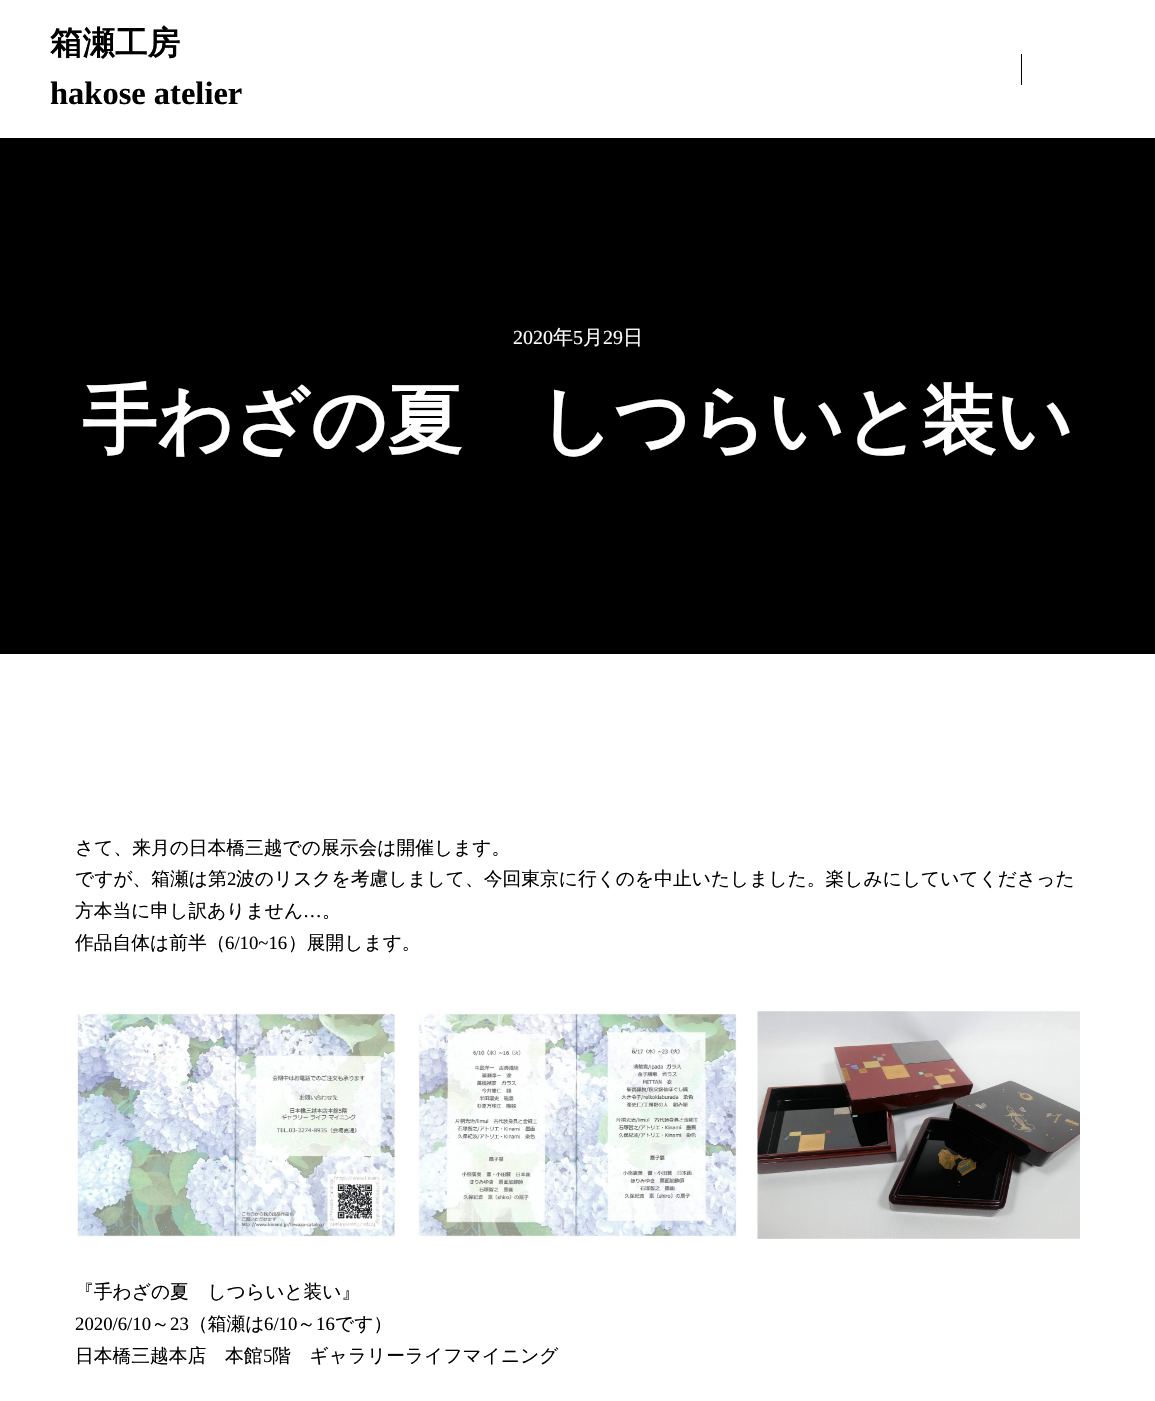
void draw(SkCanvas* canvas) {
    SkPaint paint;
    paint.setAntiAlias(true);
    auto face = [&](const char* family, int weight, float size, bool italic = false) {
        SkFontStyle style(weight, SkFontStyle::kNormal_Width,
            italic ? SkFontStyle::kItalic_Slant : SkFontStyle::kUpright_Slant);
        SkFont result(fontMgr->matchFamilyStyle(family, style), size);
        result.setSubpixel(true);
        return result;
    };
    auto write = [&](const char* s, float x, float y, const SkFont& font, SkColor color) {
        SkPaint ink(SkColor4f::FromColor(color));
        ink.setAntiAlias(true);
        canvas->drawString(s, x, y, font, ink);
    };
    auto block = [&](float x, float y, float w, float h, SkColor color) {
        SkPaint ink(SkColor4f::FromColor(color));
        ink.setAntiAlias(true);
        canvas->drawRect(SkRect::MakeXYWH(x, y, w, h), ink);
    };
    auto paste = [&](const char* path, float x, float y, float w, float h) {
        auto image = SkImages::DeferredFromEncodedData(SkData::MakeFromFileName(path));
        canvas->drawImageRect(image, SkRect::MakeXYWH(x, y, w, h), SkSamplingOptions());
    };
    canvas->clear(SK_ColorWHITE);
    auto kFont1 = face("WenQuanYi Zen Hei", 700, 32.5f);
    write("箱瀬工房", 50, 54, kFont1, SK_ColorBLACK);
    auto kFont2 = face("Liberation Serif", 700, 32.5f);
    write("hakose atelier", 50, 104, kFont2, SK_ColorBLACK);
    block(1021, 54, 1, 31, SK_ColorBLACK);
    block(0, 138, 1155, 516, SK_ColorBLACK);
    auto kFont3 = face("Liberation Serif", 400, 20);
    write("2020", 513, 344, kFont3, SK_ColorWHITE);
    auto kFont4 = face("WenQuanYi Zen Hei", 500, 20);
    write("年", 553, 344, kFont4, SK_ColorWHITE);
    write("5", 573, 344, kFont3, SK_ColorWHITE);
    write("月", 583, 344, kFont4, SK_ColorWHITE);
    write("29", 603, 344, kFont3, SK_ColorWHITE);
    write("日", 623, 344, kFont4, SK_ColorWHITE);
    auto kFont5 = face("WenQuanYi Zen Hei", 700, 75);
    write("手わざの夏　しつらいと装い", 82, 446, kFont5, SK_ColorWHITE);
    auto kFont6 = face("WenQuanYi Zen Hei", 500, 18.75f);
    write("さて、来月の日本橋三越での展示会は開催します。", 75, 854, kFont6, SK_ColorBLACK);
    write("ですが、箱瀬は第", 75, 885, kFont6, SK_ColorBLACK);
    auto kFont7 = face("Liberation Serif", 400, 18.75f);
    write("2", 227, 885, kFont7, SK_ColorBLACK);
    write("波のリスクを考慮しまして、今回東京に行くのを中止いたしました。楽しみにしていてくださった", 236, 885, kFont6, SK_ColorBLACK);
    write("方本当に申し訳ありません", 75, 917, kFont6, SK_ColorBLACK);
    write("…", 303, 917, kFont7, SK_ColorBLACK);
    write("。", 322, 917, kFont6, SK_ColorBLACK);
    write("作品自体は前半（", 75, 949, kFont6, SK_ColorBLACK);
    write("6/10~16", 225, 949, kFont7, SK_ColorBLACK);
    write("）展開します。", 288, 949, kFont6, SK_ColorBLACK);
    paste("pic1.png", 75, 1011, 323, 227);
    paste("pic2.png", 417, 1011, 321, 227);
    paste("pic3.png", 757, 1011, 323, 228);
    write("『手わざの夏　しつらいと装い』", 75, 1298, kFont6, SK_ColorBLACK);
    write("2020/6/10", 75, 1330, kFont7, SK_ColorBLACK);
    write("～", 151, 1330, kFont6, SK_ColorBLACK);
    write("23", 170, 1330, kFont7, SK_ColorBLACK);
    write("（箱瀬は", 189, 1330, kFont6, SK_ColorBLACK);
    write("6/10", 264, 1330, kFont7, SK_ColorBLACK);
    write("～", 297, 1330, kFont6, SK_ColorBLACK);
    write("16", 316, 1330, kFont7, SK_ColorBLACK);
    write("です）", 335, 1330, kFont6, SK_ColorBLACK);
    write("日本橋三越本店　本館", 75, 1362, kFont6, SK_ColorBLACK);
    write("5", 263, 1362, kFont7, SK_ColorBLACK);
    write("階　ギャラリーライフマイニング", 272, 1362, kFont6, SK_ColorBLACK);
}
